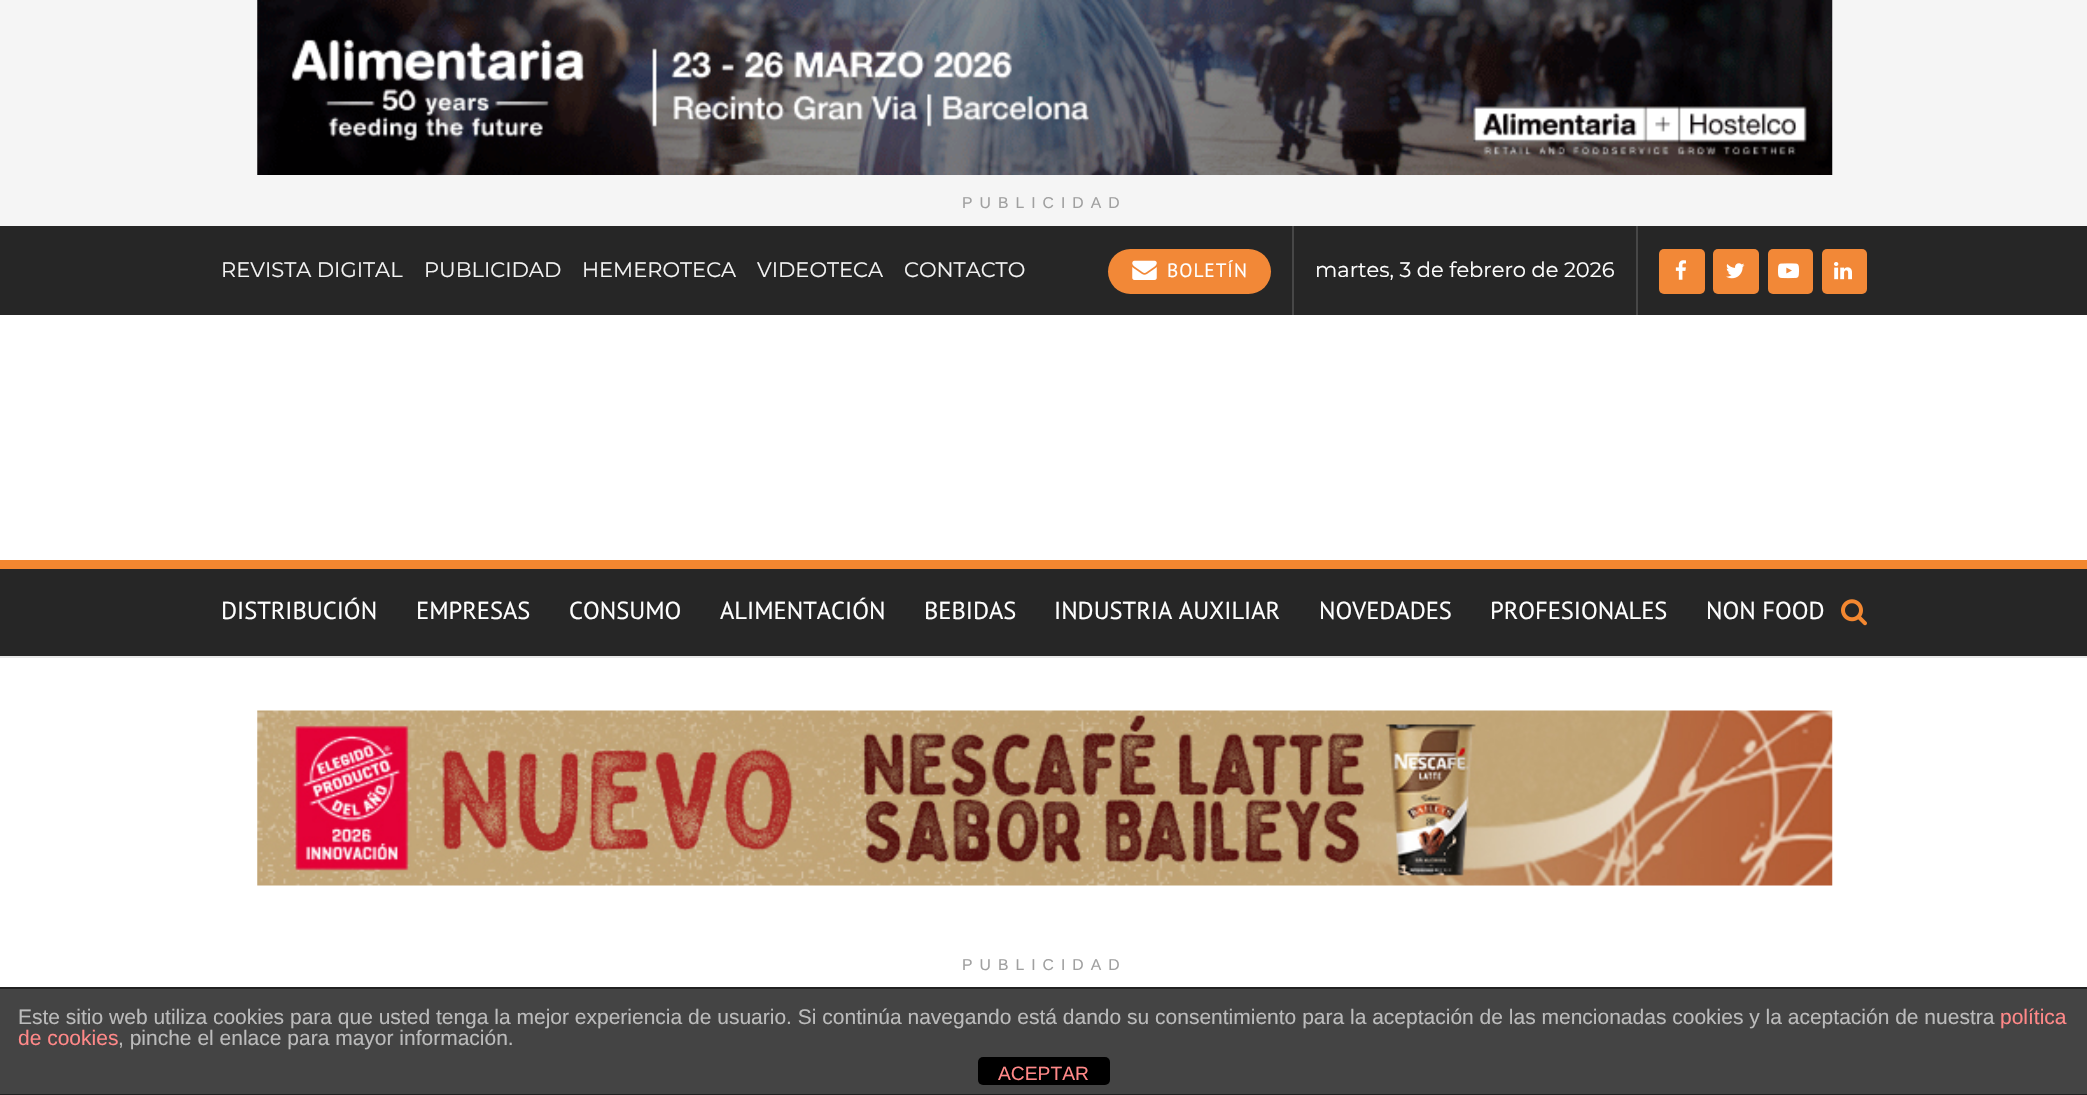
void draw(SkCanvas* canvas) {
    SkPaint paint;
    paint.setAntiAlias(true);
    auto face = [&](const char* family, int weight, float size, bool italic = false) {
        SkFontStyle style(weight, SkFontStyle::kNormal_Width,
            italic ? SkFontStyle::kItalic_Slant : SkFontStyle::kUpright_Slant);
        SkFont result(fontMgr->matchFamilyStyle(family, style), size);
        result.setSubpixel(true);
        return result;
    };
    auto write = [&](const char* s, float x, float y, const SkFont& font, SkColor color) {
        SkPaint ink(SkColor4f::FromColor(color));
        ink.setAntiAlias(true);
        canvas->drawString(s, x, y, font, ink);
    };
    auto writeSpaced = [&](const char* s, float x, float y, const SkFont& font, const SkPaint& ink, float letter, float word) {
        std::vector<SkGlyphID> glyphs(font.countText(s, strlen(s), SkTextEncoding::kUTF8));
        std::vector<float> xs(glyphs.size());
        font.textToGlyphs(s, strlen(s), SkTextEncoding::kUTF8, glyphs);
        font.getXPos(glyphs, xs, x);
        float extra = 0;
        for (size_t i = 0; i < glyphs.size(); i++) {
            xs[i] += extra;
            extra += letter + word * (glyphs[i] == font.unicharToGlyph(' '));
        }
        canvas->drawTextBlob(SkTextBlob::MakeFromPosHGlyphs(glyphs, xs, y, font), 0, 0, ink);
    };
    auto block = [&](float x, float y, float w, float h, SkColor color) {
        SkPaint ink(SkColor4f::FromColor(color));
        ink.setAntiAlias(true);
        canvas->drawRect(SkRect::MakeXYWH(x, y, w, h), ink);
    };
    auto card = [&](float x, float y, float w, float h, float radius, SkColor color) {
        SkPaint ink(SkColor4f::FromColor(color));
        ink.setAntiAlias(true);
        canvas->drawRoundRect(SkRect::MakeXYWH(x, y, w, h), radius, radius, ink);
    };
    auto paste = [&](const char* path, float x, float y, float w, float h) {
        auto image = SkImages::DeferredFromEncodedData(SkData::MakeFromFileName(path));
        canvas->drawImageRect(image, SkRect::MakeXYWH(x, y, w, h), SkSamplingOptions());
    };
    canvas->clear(SK_ColorWHITE);
    block(0, 0, 2087, 226, SkColorSetRGB(245, 245, 245));
    paste("pic1.png", 257, 0, 1576, 175);
    auto kFont1 = face("Liberation Sans", 400, 15.75f);
    paint.setColor(SkColorSetRGB(160, 160, 160));
    writeSpaced("PUBLICIDAD", 962, 208, kFont1, paint, 7, 0);
    block(0, 226, 2087, 89, SkColorSetRGB(38, 38, 38));
    auto kFont2 = face("Montserrat", 400, 21);
    write("REVISTA DIGITAL", 221, 277, kFont2, SkColorSetRGB(244, 244, 244));
    write("PUBLICIDAD", 424, 277, kFont2, SkColorSetRGB(244, 244, 244));
    write("HEMEROTECA", 582, 277, kFont2, SkColorSetRGB(244, 244, 244));
    write("VIDEOTECA", 757, 277, kFont2, SkColorSetRGB(244, 244, 244));
    write("CONTACTO", 904, 277, kFont2, SkColorSetRGB(244, 244, 244));
    block(1292, 226, 2, 89, SkColorSetRGB(71, 71, 71));
    card(1108, 249, 163, 45, 22.5f, SkColorSetRGB(242, 136, 55));
    paste("pic2.png", 1132, 260, 25, 20);
    auto kFont3 = face("PT Sans", 400, 19.25f);
    paint.setColor(SK_ColorWHITE);
    writeSpaced("BOLETÍN", 1167, 277, kFont3, paint, 1, 0);
    block(1636, 226, 2, 89, SkColorSetRGB(71, 71, 71));
    write("martes, 3 de febrero de 2026", 1315, 277, kFont2, SK_ColorWHITE);
    card(1659, 249, 46, 45, 5, SkColorSetRGB(242, 136, 55));
    paste("pic3.png", 1675, 260, 11, 20);
    card(1713, 249, 46, 45, 5, SkColorSetRGB(242, 136, 55));
    paste("pic4.png", 1726, 263, 19, 16);
    card(1768, 249, 45, 45, 5, SkColorSetRGB(242, 136, 55));
    paste("pic5.png", 1778, 263, 21, 16);
    card(1822, 249, 45, 45, 5, SkColorSetRGB(242, 136, 55));
    paste("pic6.png", 1834, 262, 18, 18);
    block(0, 569, 2087, 87, SkColorSetRGB(38, 38, 38));
    block(0, 560, 2087, 9, SkColorSetRGB(243, 135, 48));
    block(0, 656, 2087, 2, SkColorSetRGB(232, 232, 232));
    auto kFont4 = face("PT Sans", 400, 24.5f);
    write("DISTRIBUCIÓN", 221, 619, kFont4, SK_ColorWHITE);
    write("EMPRESAS", 416, 619, kFont4, SK_ColorWHITE);
    write("CONSUMO", 569, 619, kFont4, SK_ColorWHITE);
    write("ALIMENTACIÓN", 720, 619, kFont4, SK_ColorWHITE);
    write("BEBIDAS", 924, 619, kFont4, SK_ColorWHITE);
    write("INDUSTRIA AUXILIAR", 1054, 619, kFont4, SK_ColorWHITE);
    write("NOVEDADES", 1319, 619, kFont4, SK_ColorWHITE);
    write("PROFESIONALES", 1490, 619, kFont4, SK_ColorWHITE);
    write("NON FOOD", 1706, 619, kFont4, SK_ColorWHITE);
    paste("pic7.png", 1841, 599, 26, 27);
    paste("pic8.png", 257, 710, 1576, 176);
    paint.setColor(SkColorSetRGB(160, 160, 160));
    writeSpaced("PUBLICIDAD", 962, 970, kFont1, paint, 7, 0);
    block(0, 989, 2087, 105, SkColorSetRGB(68, 68, 68));
    block(0, 987, 2087, 2, SkColorSetRGB(34, 34, 34));
    block(0, 1094, 2087, 1, SkColorSetRGB(34, 34, 34));
    auto kFont5 = face("Liberation Sans", 400, 21);
    write("Este sitio web utiliza cookies para que usted tenga la mejor experiencia de usuario. Si continúa navegando está dando su consentimiento para la aceptación de las mencionadas cookies y la aceptación de nuestra", 18, 1024, kFont5, SkColorSetRGB(187, 187, 187));
    write("política", 2000, 1024, kFont5, SkColorSetRGB(255, 136, 136));
    write("de cookies", 18, 1045, kFont5, SkColorSetRGB(255, 136, 136));
    write(", pinche el enlace para mayor información.", 118, 1045, kFont5, SkColorSetRGB(187, 187, 187));
    card(978, 1057, 132, 28, 5, SK_ColorBLACK);
    auto kFont6 = face("Liberation Sans", 400, 19.25f);
    write("ACEPTAR", 998, 1080, kFont6, SkColorSetRGB(255, 136, 136));
}
